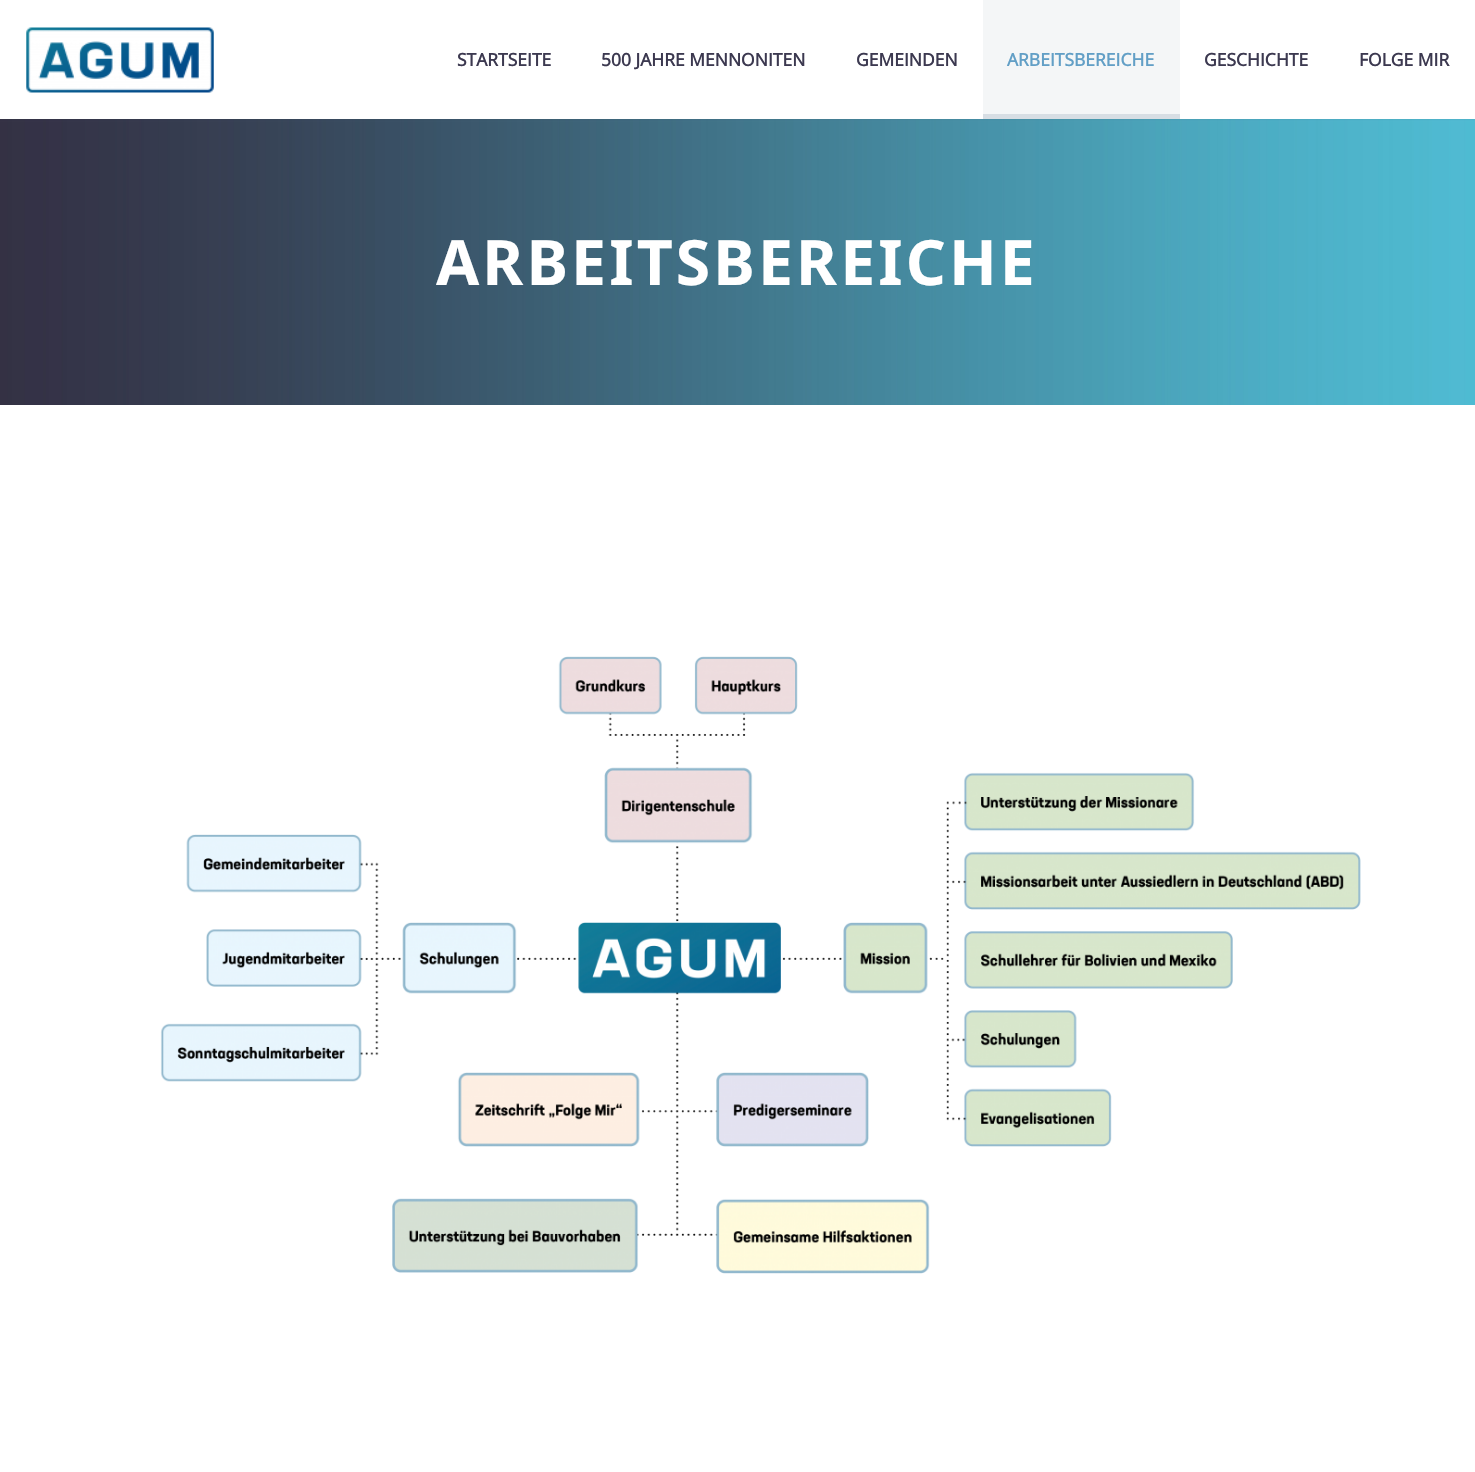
void draw(SkCanvas* canvas) {
    SkPaint paint;
    paint.setAntiAlias(true);
    auto face = [&](const char* family, int weight, float size, bool italic = false) {
        SkFontStyle style(weight, SkFontStyle::kNormal_Width,
            italic ? SkFontStyle::kItalic_Slant : SkFontStyle::kUpright_Slant);
        SkFont result(fontMgr->matchFamilyStyle(family, style), size);
        result.setSubpixel(true);
        return result;
    };
    auto write = [&](const char* s, float x, float y, const SkFont& font, SkColor color) {
        SkPaint ink(SkColor4f::FromColor(color));
        ink.setAntiAlias(true);
        canvas->drawString(s, x, y, font, ink);
    };
    auto writeSpaced = [&](const char* s, float x, float y, const SkFont& font, const SkPaint& ink, float letter, float word) {
        std::vector<SkGlyphID> glyphs(font.countText(s, strlen(s), SkTextEncoding::kUTF8));
        std::vector<float> xs(glyphs.size());
        font.textToGlyphs(s, strlen(s), SkTextEncoding::kUTF8, glyphs);
        font.getXPos(glyphs, xs, x);
        float extra = 0;
        for (size_t i = 0; i < glyphs.size(); i++) {
            xs[i] += extra;
            extra += letter + word * (glyphs[i] == font.unicharToGlyph(' '));
        }
        canvas->drawTextBlob(SkTextBlob::MakeFromPosHGlyphs(glyphs, xs, y, font), 0, 0, ink);
    };
    auto block = [&](float x, float y, float w, float h, SkColor color) {
        SkPaint ink(SkColor4f::FromColor(color));
        ink.setAntiAlias(true);
        canvas->drawRect(SkRect::MakeXYWH(x, y, w, h), ink);
    };
    auto paste = [&](const char* path, float x, float y, float w, float h) {
        auto image = SkImages::DeferredFromEncodedData(SkData::MakeFromFileName(path));
        canvas->drawImageRect(image, SkRect::MakeXYWH(x, y, w, h), SkSamplingOptions());
    };
    canvas->clear(SK_ColorWHITE);
    paste("pic2.png", 0, 119, 1475, 286);
    paint.setColor(SkColorSetARGB(51, 56, 69, 84));
    paint.setMaskFilter(SkMaskFilter::MakeBlur(kNormal_SkBlurStyle, 1));
    canvas->drawRect(SkRect::MakeXYWH(0, 0, 1475, 119), paint);
    paint.setMaskFilter(nullptr);
    block(0, 0, 1475, 119, SK_ColorWHITE);
    paste("pic1.png", 26, 27, 188, 66);
    auto kFont1 = face("Open Sans", 700, 17.5f);
    write("STARTSEITE", 457, 66, kFont1, SkColorSetRGB(60, 57, 80));
    write("500 JAHRE MENNONITEN", 601, 66, kFont1, SkColorSetRGB(60, 57, 80));
    write("GEMEINDEN", 856, 66, kFont1, SkColorSetRGB(60, 57, 80));
    block(983, 0, 197, 114, SkColorSetRGB(244, 246, 247));
    block(983, 114, 197, 5, SkColorSetRGB(215, 222, 228));
    write("ARBEITSBEREICHE", 1007, 66, kFont1, SkColorSetRGB(98, 159, 198));
    write("GESCHICHTE", 1204, 66, kFont1, SkColorSetRGB(60, 57, 80));
    write("FOLGE MIR", 1359, 66, kFont1, SkColorSetRGB(60, 57, 80));
    auto kFont2 = face("Noto Sans", 700, 62.5f);
    paint.setColor(SK_ColorWHITE);
    writeSpaced("ARBEITSBEREICHE", 436, 285, kFont2, paint, 3.1f, 0);
    paste("pic3.png", 160, 656, 1201, 618);
}
